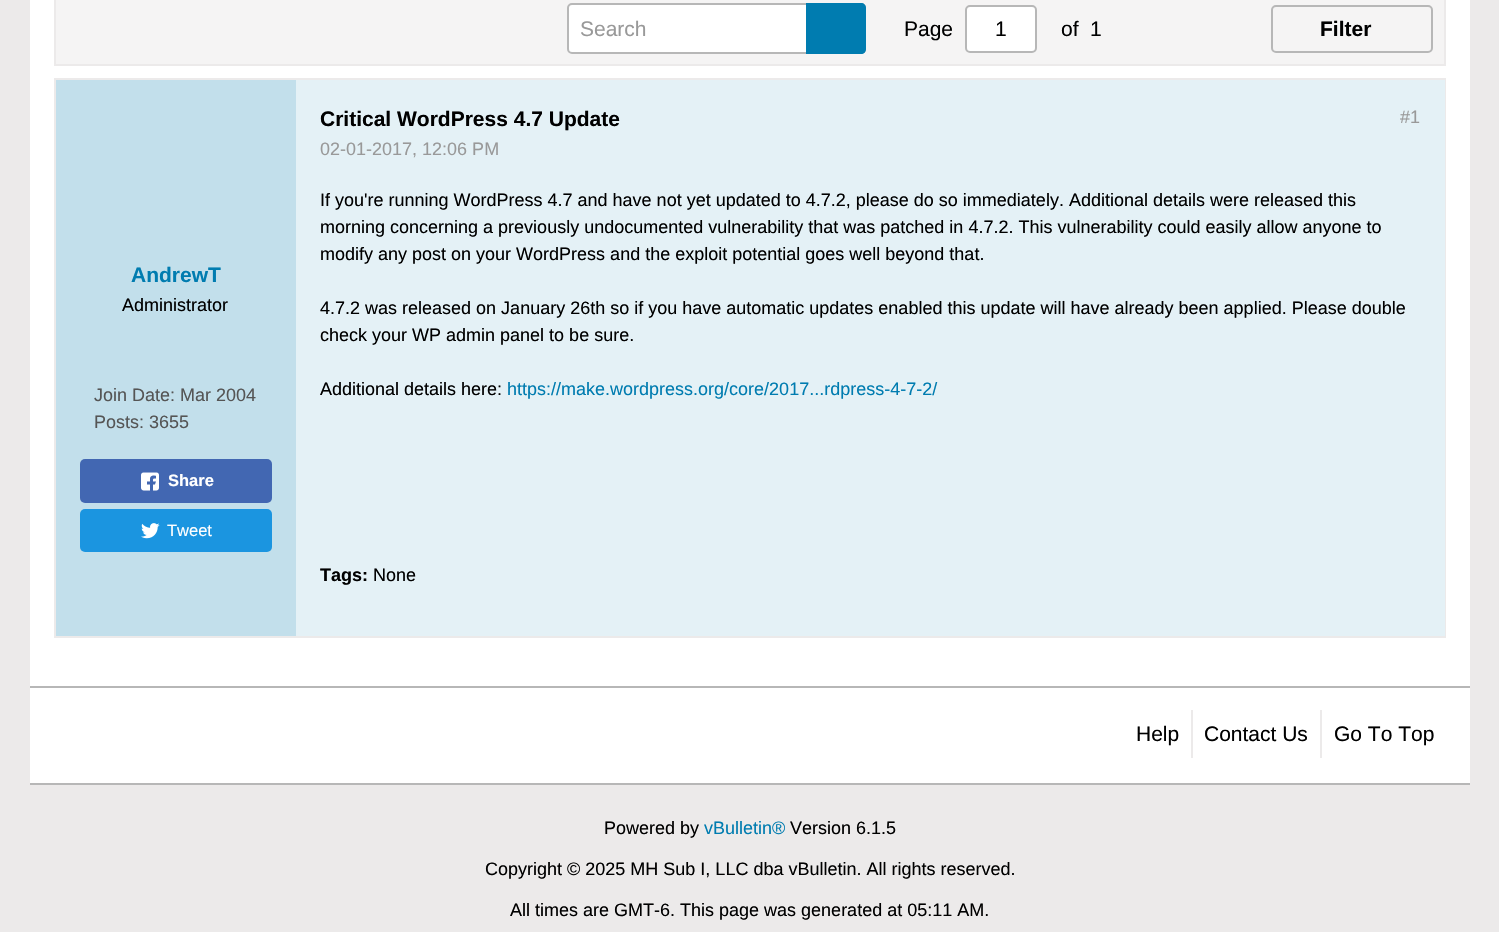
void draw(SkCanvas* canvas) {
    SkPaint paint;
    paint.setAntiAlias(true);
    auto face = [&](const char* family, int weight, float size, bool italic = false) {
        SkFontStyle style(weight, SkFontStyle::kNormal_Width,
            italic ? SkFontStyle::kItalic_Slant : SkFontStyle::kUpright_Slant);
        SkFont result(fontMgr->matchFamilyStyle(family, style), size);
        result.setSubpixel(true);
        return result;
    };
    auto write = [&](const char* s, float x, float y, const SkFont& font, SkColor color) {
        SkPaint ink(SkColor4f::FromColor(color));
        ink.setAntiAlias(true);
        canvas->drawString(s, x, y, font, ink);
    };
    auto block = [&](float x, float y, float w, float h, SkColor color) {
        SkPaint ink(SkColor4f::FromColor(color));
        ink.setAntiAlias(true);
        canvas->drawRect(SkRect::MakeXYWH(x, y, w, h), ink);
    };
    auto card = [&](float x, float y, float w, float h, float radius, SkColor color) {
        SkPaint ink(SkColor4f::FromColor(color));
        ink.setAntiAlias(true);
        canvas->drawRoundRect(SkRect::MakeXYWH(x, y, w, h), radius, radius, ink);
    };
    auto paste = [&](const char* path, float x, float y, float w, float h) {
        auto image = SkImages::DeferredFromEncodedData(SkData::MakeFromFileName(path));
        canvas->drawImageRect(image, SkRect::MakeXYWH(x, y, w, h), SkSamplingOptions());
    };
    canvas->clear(SkColorSetRGB(236, 234, 234));
    block(30, 0, 1440, 686, SK_ColorWHITE);
    paint.setColor(SkColorSetRGB(245, 244, 244));
    canvas->drawRect(SkRect::MakeXYWH(55, -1, 1390, 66), paint);
    paint.setStyle(SkPaint::kStroke_Style);
    paint.setStrokeWidth(2);
    paint.setColor(SkColorSetRGB(236, 234, 234));
    canvas->drawRect(SkRect::MakeXYWH(55, -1, 1390, 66), paint);
    paint.setStyle(SkPaint::kFill_Style);
    paint.setColor(SK_ColorWHITE);
    canvas->drawRoundRect(SkRect::MakeXYWH(568, 4, 297, 49), 4, 4, paint);
    paint.setStyle(SkPaint::kStroke_Style);
    paint.setColor(SkColorSetRGB(183, 183, 183));
    canvas->drawRoundRect(SkRect::MakeXYWH(568, 4, 297, 49), 4, 4, paint);
    auto kFont1 = face("Liberation Sans", 400, 21);
    write("Search", 580, 36, kFont1, SkColorSetRGB(153, 153, 153));
    paint.setStyle(SkPaint::kFill_Style);
    paint.setColor(SkColorSetRGB(0, 124, 176));
    canvas->drawPath(SkPathBuilder().moveTo(806, 3).lineTo(861, 3).cubicTo(864, 3, 866, 5, 866, 8).lineTo(866, 49).cubicTo(866, 52, 864, 54, 861, 54).lineTo(806, 54).close().detach(), paint);
    write("Page", 904, 36, kFont1, SK_ColorBLACK);
    paint.setColor(SK_ColorWHITE);
    canvas->drawRoundRect(SkRect::MakeXYWH(966, 6, 70, 46), 4, 4, paint);
    paint.setStyle(SkPaint::kStroke_Style);
    paint.setColor(SkColorSetRGB(183, 183, 183));
    canvas->drawRoundRect(SkRect::MakeXYWH(966, 6, 70, 46), 4, 4, paint);
    write("1", 995, 36, kFont1, SK_ColorBLACK);
    write("of", 1061, 36, kFont1, SK_ColorBLACK);
    write("1", 1090, 36, kFont1, SK_ColorBLACK);
    canvas->drawRoundRect(SkRect::MakeXYWH(1272, 6, 160, 46), 4, 4, paint);
    auto kFont2 = face("Liberation Sans", 700, 21);
    write("Filter", 1320, 36, kFont2, SK_ColorBLACK);
    block(56, 80, 240, 556, SkColorSetRGB(194, 223, 235));
    paint.setColor(SkColorSetRGB(236, 234, 234));
    canvas->drawRect(SkRect::MakeXYWH(55, 79, 1390, 558), paint);
    write("AndrewT", 131, 282, kFont2, SkColorSetRGB(0, 124, 176));
    auto kFont3 = face("Liberation Sans", 400, 18);
    write("Administrator", 122, 311, kFont3, SK_ColorBLACK);
    write("Join Date: Mar 2004", 94, 401, kFont3, SkColorSetRGB(85, 85, 85));
    write("Posts: 3655", 94, 428, kFont3, SkColorSetRGB(85, 85, 85));
    card(80, 459, 192, 44, 5, SkColorSetRGB(66, 103, 178));
    paste("pic1.png", 141, 472, 18, 19);
    auto kFont4 = face("Liberation Sans", 700, 16.5f);
    write("Share", 168, 486, kFont4, SK_ColorWHITE);
    card(80, 509, 192, 43, 5, SkColorSetRGB(27, 149, 224));
    paste("pic2.png", 141, 523, 19, 16);
    auto kFont5 = face("Liberation Sans", 400, 16.5f);
    write("Tweet", 167, 536, kFont5, SK_ColorWHITE);
    block(296, 80, 1149, 556, SkColorSetRGB(228, 241, 246));
    write("Critical WordPress 4.7 Update", 320, 126, kFont2, SK_ColorBLACK);
    write("02-01-2017, 12:06 PM", 320, 155, kFont3, SkColorSetRGB(153, 153, 153));
    write("#1", 1400, 123, kFont3, SkColorSetRGB(153, 153, 153));
    write("If you're running WordPress 4.7 and have not yet updated to 4.7.2, please do so immediately. Additional details were released this", 320, 206, kFont3, SK_ColorBLACK);
    write("morning concerning a previously undocumented vulnerability that was patched in 4.7.2. This vulnerability could easily allow anyone to", 320, 233, kFont3, SK_ColorBLACK);
    write("modify any post on your WordPress and the exploit potential goes well beyond that.", 320, 260, kFont3, SK_ColorBLACK);
    write("4.7.2 was released on January 26th so if you have automatic updates enabled this update will have already been applied. Please double", 320, 314, kFont3, SK_ColorBLACK);
    write("check your WP admin panel to be sure.", 320, 341, kFont3, SK_ColorBLACK);
    write("Additional details here:", 320, 395, kFont3, SK_ColorBLACK);
    write("https://make.wordpress.org/core/2017...rdpress-4-7-2/", 507, 395, kFont3, SkColorSetRGB(0, 124, 176));
    auto kFont6 = face("Liberation Sans", 700, 18);
    write("Tags:", 320, 581, kFont6, SK_ColorBLACK);
    write("None", 373, 581, kFont3, SK_ColorBLACK);
    block(30, 688, 1440, 95, SK_ColorWHITE);
    block(30, 686, 1440, 2, SkColorSetRGB(183, 183, 183));
    block(30, 783, 1440, 2, SkColorSetRGB(183, 183, 183));
    write("Help", 1136, 741, kFont1, SK_ColorBLACK);
    block(1191, 710, 2, 48, SkColorSetRGB(236, 234, 234));
    write("Contact Us", 1204, 741, kFont1, SK_ColorBLACK);
    block(1320, 710, 2, 48, SkColorSetRGB(236, 234, 234));
    write("Go To Top", 1334, 741, kFont1, SK_ColorBLACK);
    write("Powered by", 604, 834, kFont3, SK_ColorBLACK);
    write("vBulletin®", 704, 834, kFont3, SkColorSetRGB(0, 124, 176));
    write("Version 6.1.5", 790, 834, kFont3, SK_ColorBLACK);
    write("Copyright © 2025 MH Sub I, LLC dba vBulletin. All rights reserved.", 485, 875, kFont3, SK_ColorBLACK);
    write("All times are GMT-6. This page was generated at 05:11 AM.", 510, 916, kFont3, SK_ColorBLACK);
}
